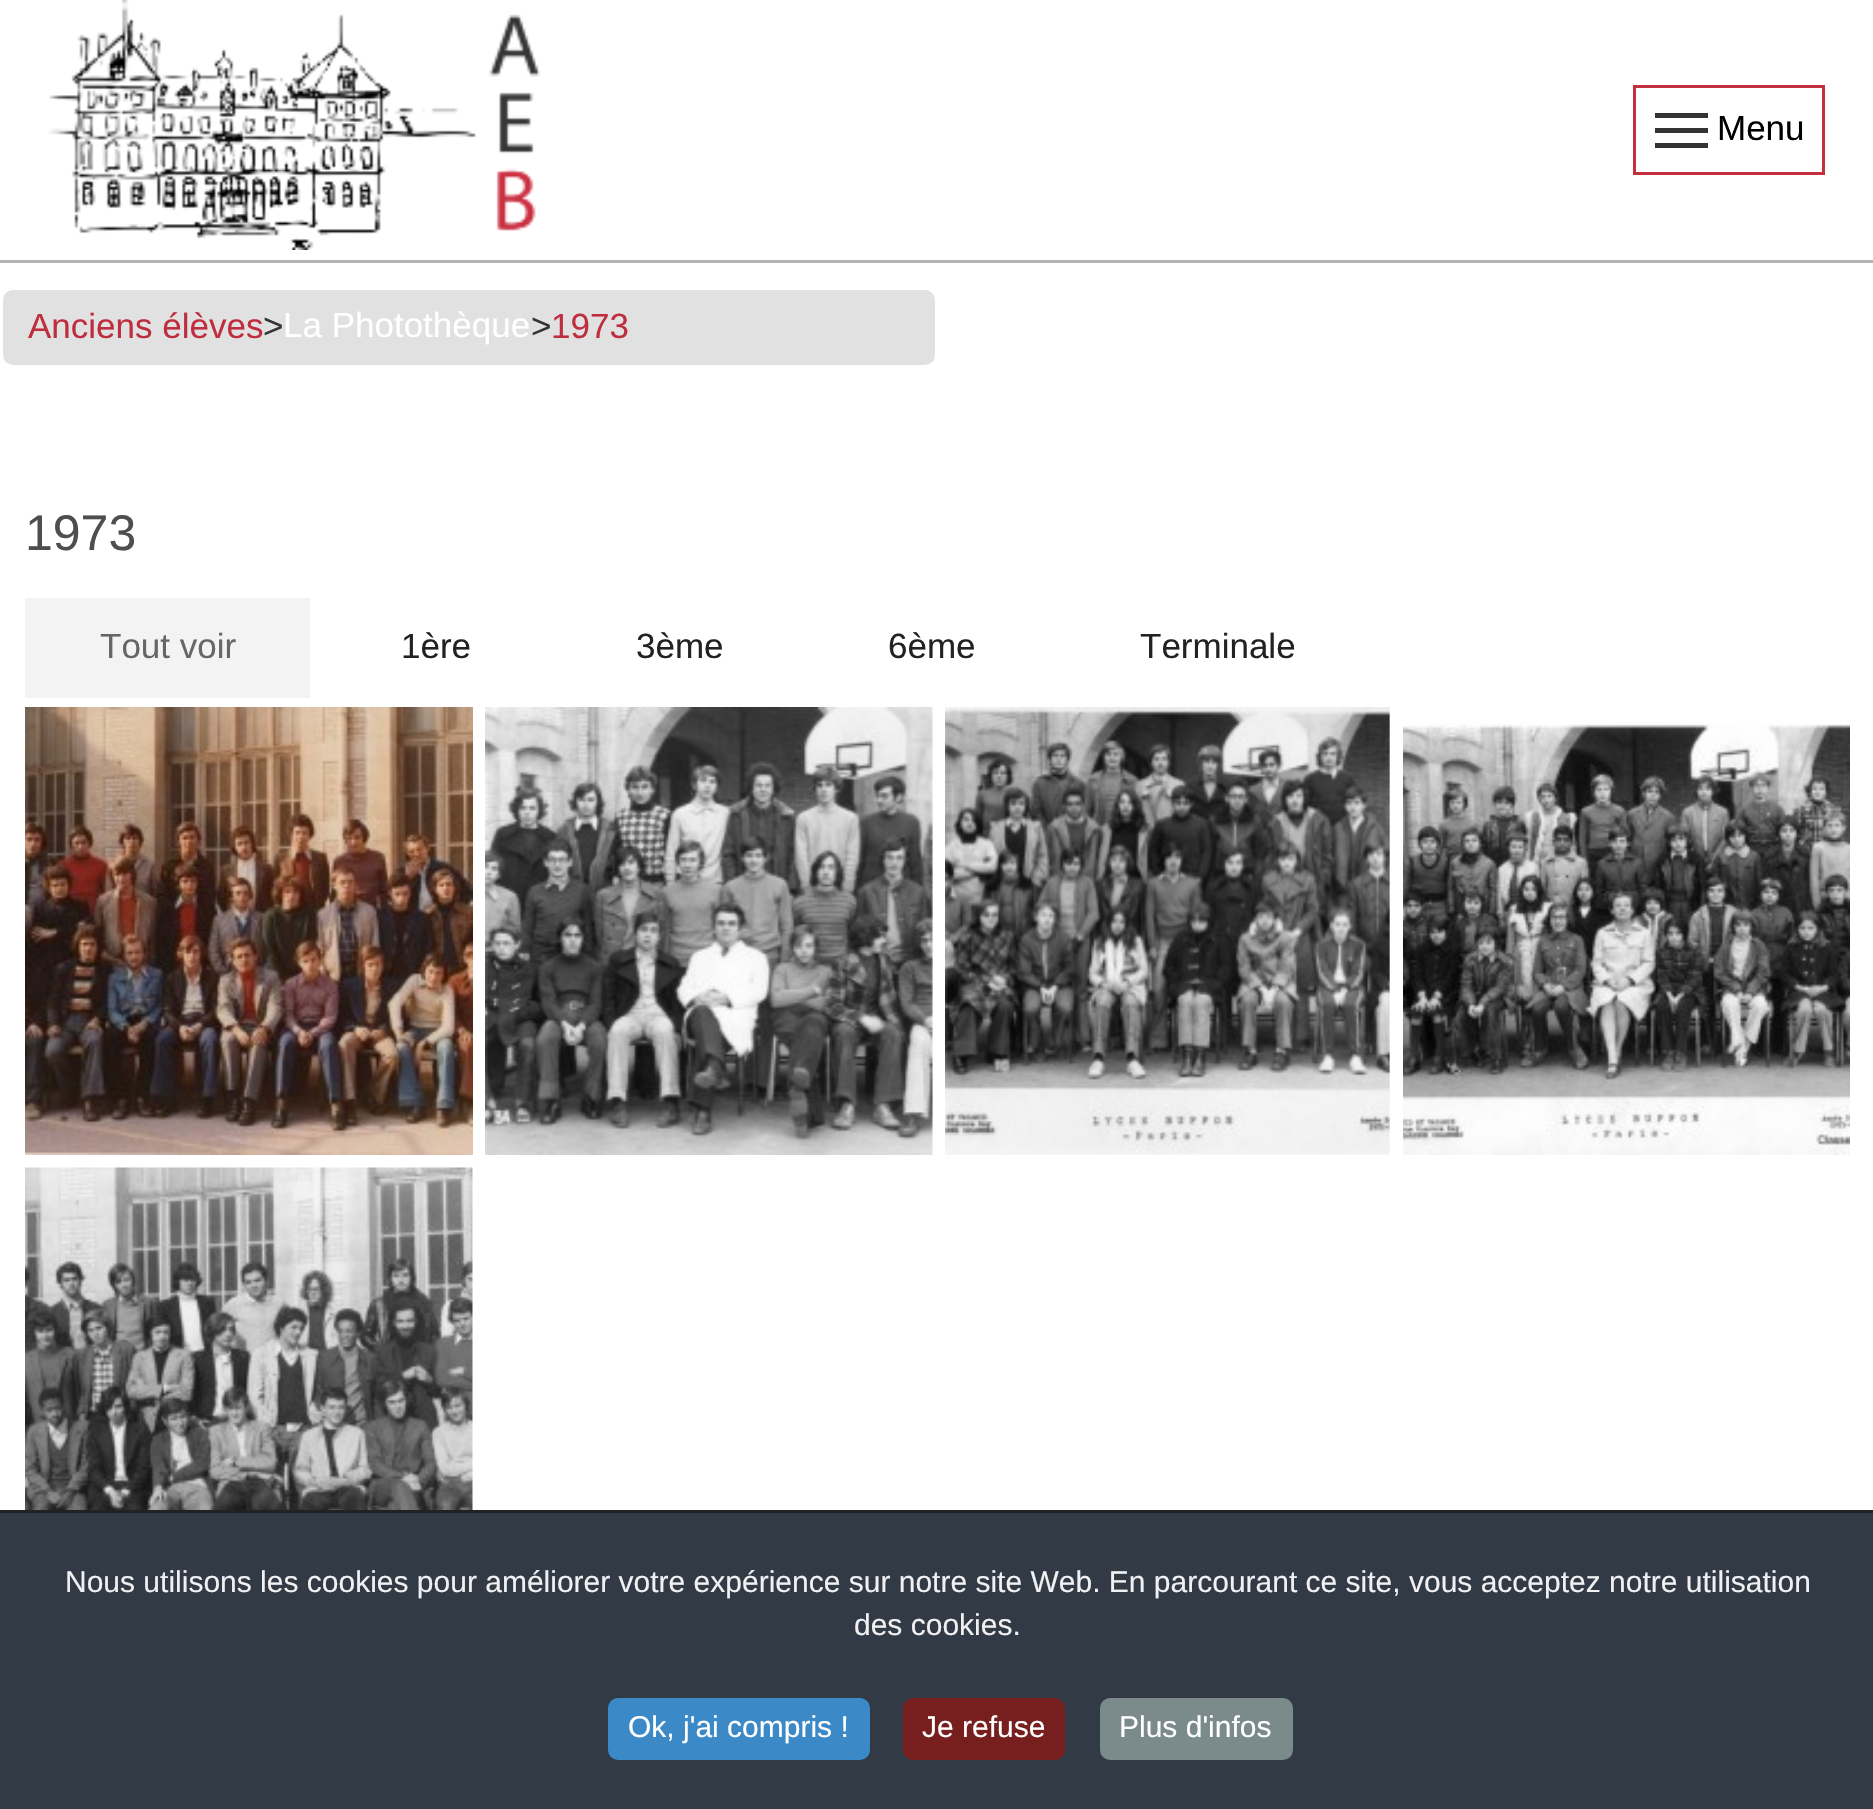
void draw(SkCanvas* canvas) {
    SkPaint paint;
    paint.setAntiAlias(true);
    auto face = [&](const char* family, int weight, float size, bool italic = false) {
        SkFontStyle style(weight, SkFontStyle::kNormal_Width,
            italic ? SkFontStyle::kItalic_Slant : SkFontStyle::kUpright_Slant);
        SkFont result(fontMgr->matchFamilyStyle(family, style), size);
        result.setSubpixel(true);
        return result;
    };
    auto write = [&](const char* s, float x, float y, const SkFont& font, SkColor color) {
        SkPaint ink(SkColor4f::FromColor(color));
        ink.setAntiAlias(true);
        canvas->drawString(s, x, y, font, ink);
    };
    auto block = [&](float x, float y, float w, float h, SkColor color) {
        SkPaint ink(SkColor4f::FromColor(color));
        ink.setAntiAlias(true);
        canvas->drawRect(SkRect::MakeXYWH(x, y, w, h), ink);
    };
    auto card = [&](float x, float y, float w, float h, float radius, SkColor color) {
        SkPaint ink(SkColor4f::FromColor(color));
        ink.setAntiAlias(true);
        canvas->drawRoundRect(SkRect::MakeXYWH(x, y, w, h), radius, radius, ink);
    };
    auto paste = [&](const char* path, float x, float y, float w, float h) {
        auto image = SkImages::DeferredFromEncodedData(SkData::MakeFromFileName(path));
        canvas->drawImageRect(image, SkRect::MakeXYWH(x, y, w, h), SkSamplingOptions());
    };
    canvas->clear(SK_ColorWHITE);
    block(0, 260, 1873, 3, SkColorSetRGB(179, 179, 179));
    paste("pic1.png", 48, 0, 492, 250);
    paint.setStyle(SkPaint::kStroke_Style);
    paint.setStrokeWidth(3);
    paint.setColor(SkColorSetRGB(197, 48, 65));
    canvas->drawRect(SkRect::MakeXYWH(1634.5f, 86.5f, 189, 87), paint);
    block(1655, 113, 53, 5, SkColorSetRGB(51, 51, 51));
    block(1655, 128, 53, 5, SkColorSetRGB(51, 51, 51));
    block(1655, 143, 53, 5, SkColorSetRGB(51, 51, 51));
    auto kFont1 = face("Liberation Sans", 400, 35);
    write("Menu", 1717, 140, kFont1, SK_ColorBLACK);
    card(3, 290, 932, 75, 10, SkColorSetRGB(225, 225, 225));
    write("Anciens élèves", 28, 338, kFont1, SkColorSetRGB(191, 46, 63));
    write(">", 263, 338, kFont1, SkColorSetRGB(52, 52, 52));
    write("La Photothèque", 283, 337, kFont1, SK_ColorWHITE);
    write(">", 531, 338, kFont1, SkColorSetRGB(52, 52, 52));
    write("1973", 551, 338, kFont1, SkColorSetRGB(191, 46, 63));
    auto kFont2 = face("Liberation Sans", 400, 50);
    write("1973", 25, 550, kFont2, SkColorSetRGB(78, 78, 78));
    block(25, 598, 285, 100, SkColorSetRGB(243, 243, 243));
    write("Tout voir", 100, 658, kFont1, SkColorSetRGB(102, 102, 102));
    write("1ère", 401, 658, kFont1, SkColorSetRGB(34, 34, 34));
    write("3ème", 636, 658, kFont1, SkColorSetRGB(34, 34, 34));
    write("6ème", 888, 658, kFont1, SkColorSetRGB(34, 34, 34));
    write("Terminale", 1140, 658, kFont1, SkColorSetRGB(34, 34, 34));
    paste("pic2.png", 25, 707, 448, 448);
    paste("pic3.png", 485, 707, 448, 448);
    paste("pic4.png", 945, 707, 445, 448);
    paste("pic5.png", 1403, 724, 447, 431);
    paste("pic6.png", 25, 1167, 448, 343);
    block(0, 1513, 1873, 296, SkColorSetRGB(50, 58, 69));
    block(0, 1510, 1873, 3, SkColorSetRGB(32, 34, 38));
    auto kFont3 = face("Liberation Sans", 400, 30);
    write("Nous utilisons les cookies pour améliorer votre expérience sur notre site Web. En parcourant ce site, vous acceptez notre utilisation", 65, 1592, kFont3, SkColorSetRGB(241, 241, 243));
    write("des cookies.", 854, 1635, kFont3, SkColorSetRGB(241, 241, 243));
    card(608, 1698, 262, 62, 10, SkColorSetRGB(59, 137, 199));
    write("Ok, j'ai compris !", 628, 1737, kFont3, SK_ColorWHITE);
    card(903, 1698, 162, 62, 10, SkColorSetRGB(119, 31, 31));
    write("Je refuse", 922, 1737, kFont3, SK_ColorWHITE);
    card(1100, 1698, 193, 62, 10, SkColorSetRGB(123, 138, 139));
    write("Plus d'infos", 1119, 1737, kFont3, SK_ColorWHITE);
}
